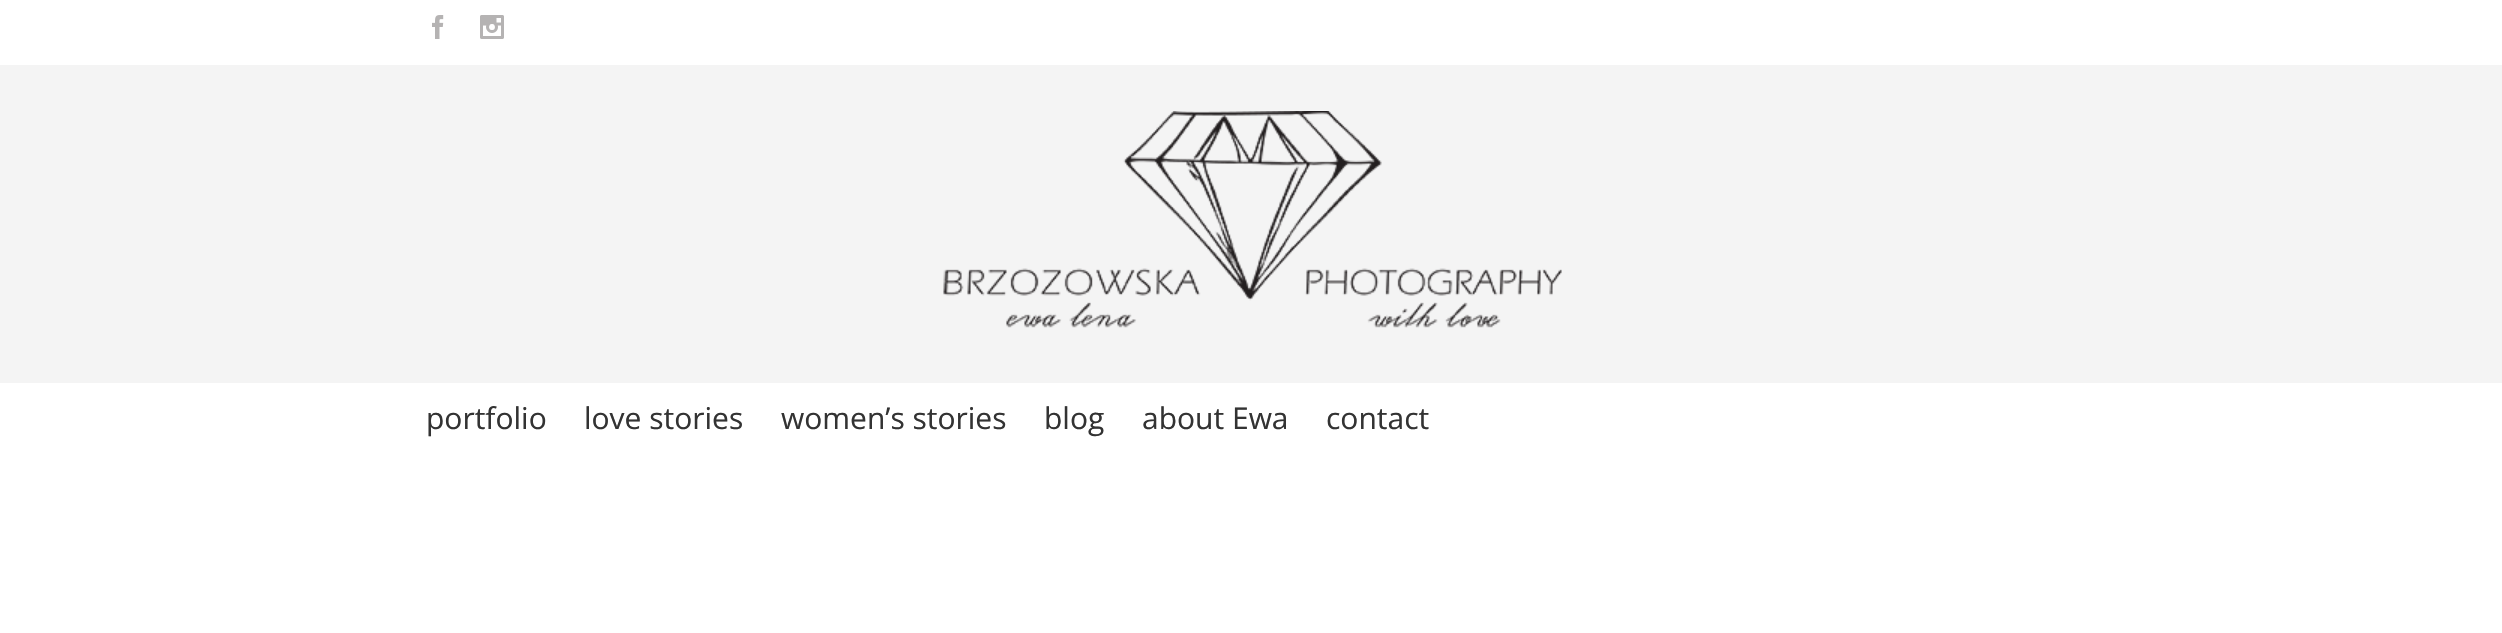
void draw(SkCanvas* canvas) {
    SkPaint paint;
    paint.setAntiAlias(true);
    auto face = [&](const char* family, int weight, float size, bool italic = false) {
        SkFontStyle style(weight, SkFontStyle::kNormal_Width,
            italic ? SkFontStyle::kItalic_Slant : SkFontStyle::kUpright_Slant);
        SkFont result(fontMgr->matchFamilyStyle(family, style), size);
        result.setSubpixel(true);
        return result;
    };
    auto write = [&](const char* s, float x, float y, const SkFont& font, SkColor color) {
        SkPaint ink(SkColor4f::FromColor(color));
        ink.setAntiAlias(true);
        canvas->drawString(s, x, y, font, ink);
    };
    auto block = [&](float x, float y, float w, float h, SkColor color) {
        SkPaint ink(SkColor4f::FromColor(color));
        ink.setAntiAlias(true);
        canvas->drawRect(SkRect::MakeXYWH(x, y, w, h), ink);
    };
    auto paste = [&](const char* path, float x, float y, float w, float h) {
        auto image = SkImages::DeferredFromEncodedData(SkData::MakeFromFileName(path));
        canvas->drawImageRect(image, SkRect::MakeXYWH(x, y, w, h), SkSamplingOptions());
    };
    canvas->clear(SK_ColorWHITE);
    paste("pic1.png", 432, 15, 12, 24);
    paste("pic2.png", 480, 15, 24, 24);
    block(0, 65, 2502, 318, SkColorSetRGB(244, 244, 244));
    paste("pic3.png", 943, 111, 619, 217);
    auto kFont1 = face("Open Sans", 400, 30);
    write("portfolio", 426, 429, kFont1, SkColorSetRGB(51, 51, 51));
    write("love stories", 584, 429, kFont1, SkColorSetRGB(51, 51, 51));
    write("women’s stories", 781, 429, kFont1, SkColorSetRGB(51, 51, 51));
    write("blog", 1044, 429, kFont1, SkColorSetRGB(51, 51, 51));
    write("about Ewa", 1142, 429, kFont1, SkColorSetRGB(51, 51, 51));
    write("contact", 1326, 429, kFont1, SkColorSetRGB(51, 51, 51));
}
